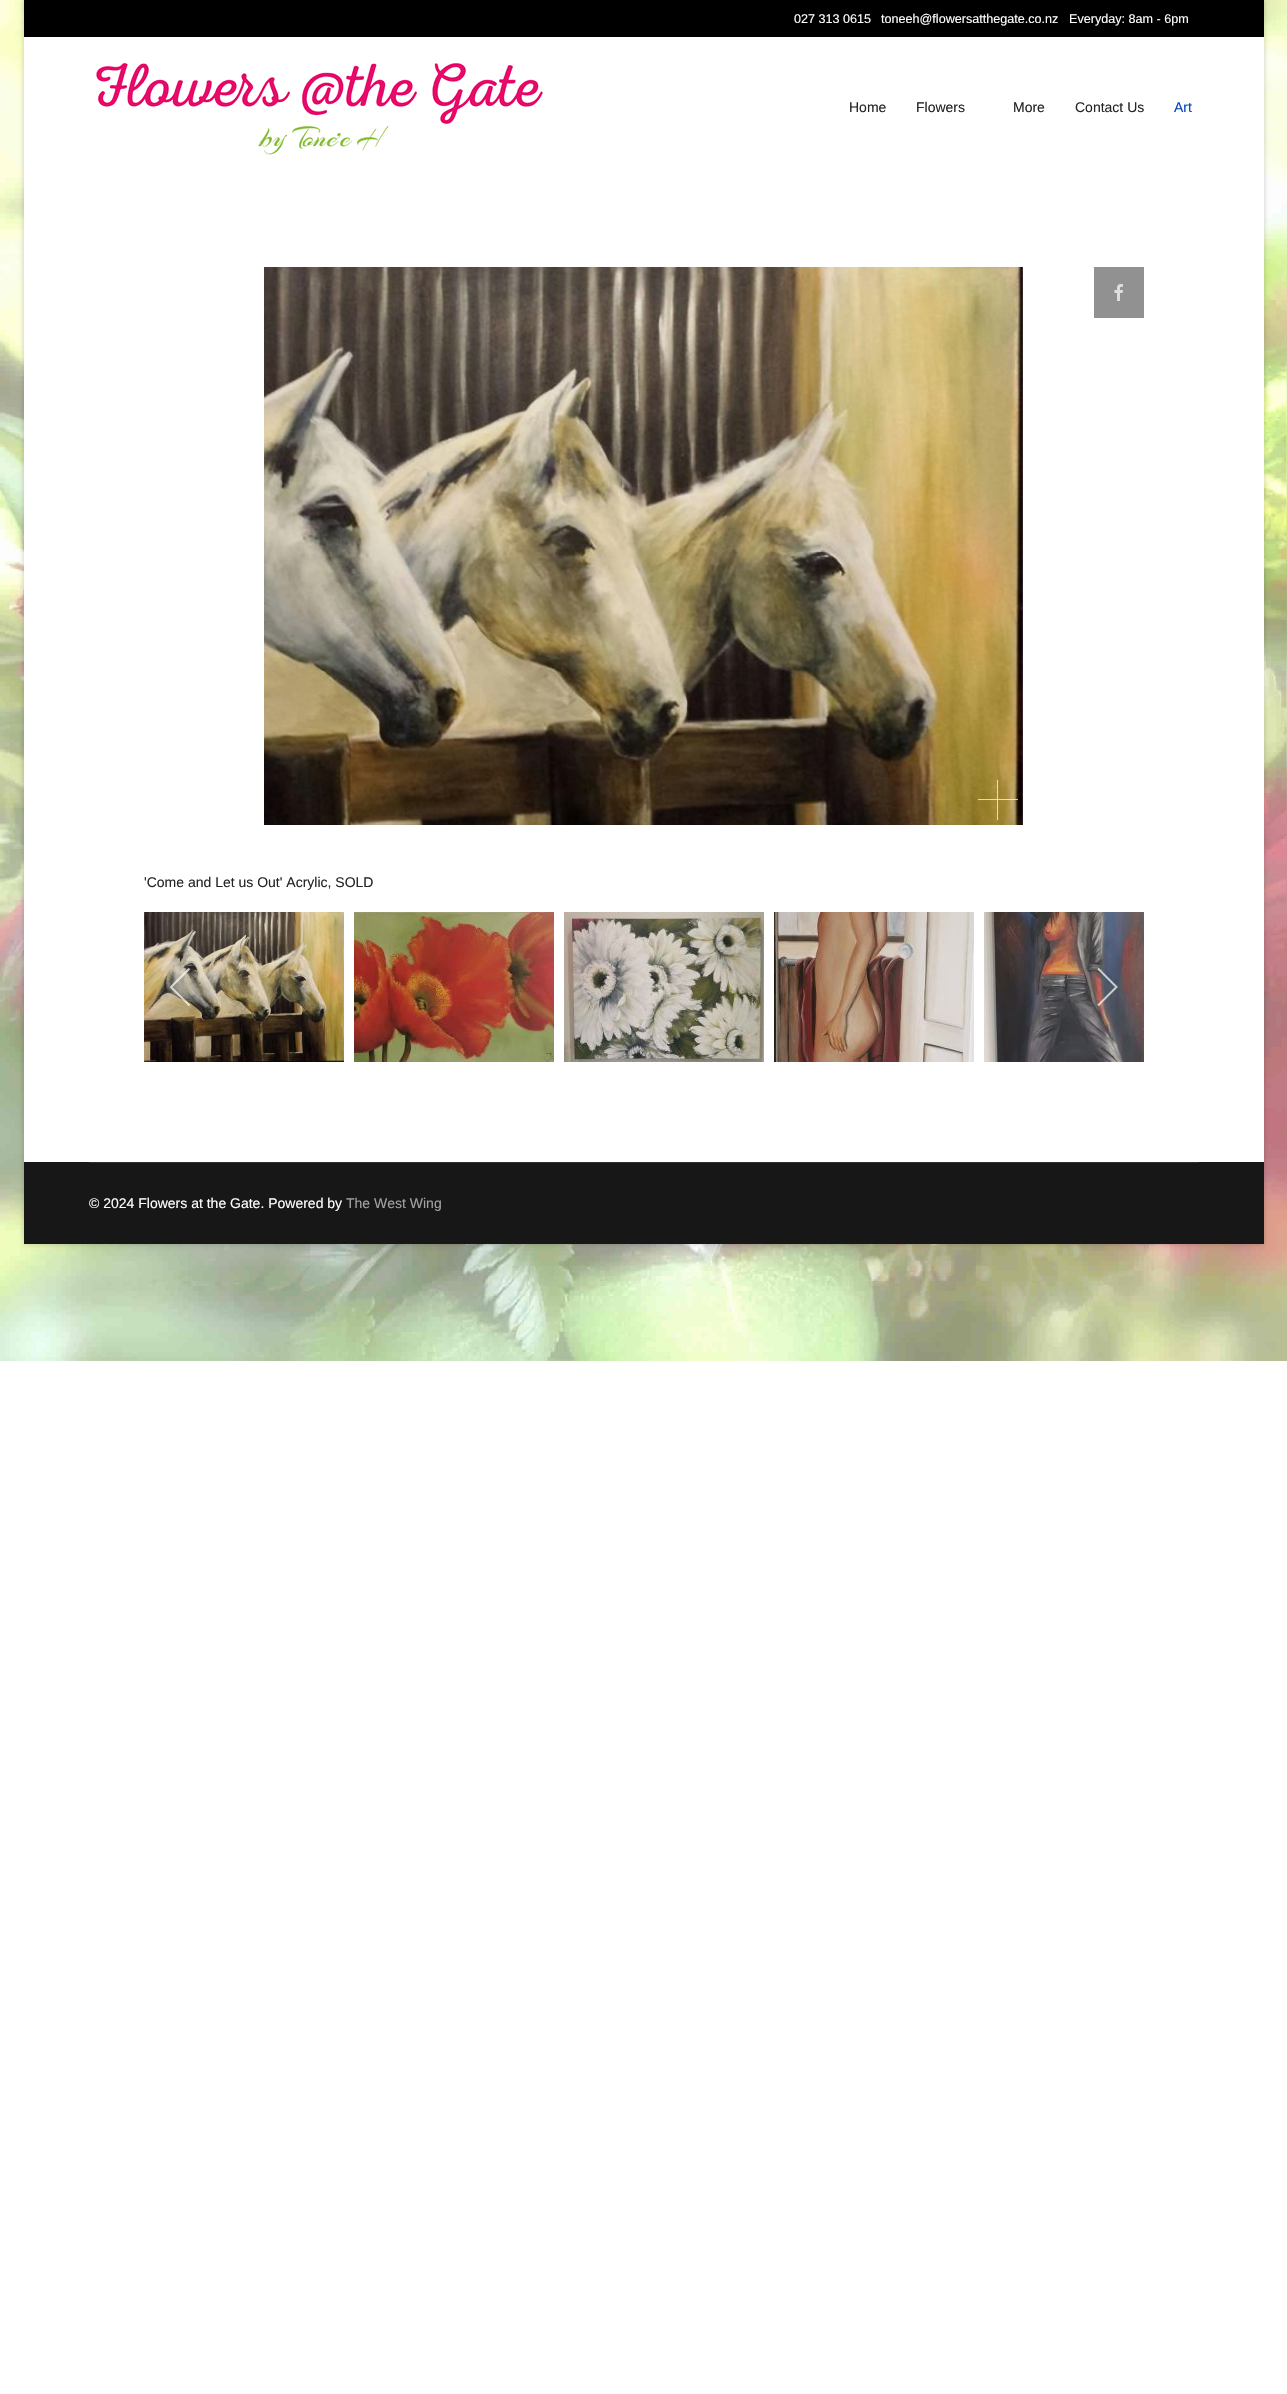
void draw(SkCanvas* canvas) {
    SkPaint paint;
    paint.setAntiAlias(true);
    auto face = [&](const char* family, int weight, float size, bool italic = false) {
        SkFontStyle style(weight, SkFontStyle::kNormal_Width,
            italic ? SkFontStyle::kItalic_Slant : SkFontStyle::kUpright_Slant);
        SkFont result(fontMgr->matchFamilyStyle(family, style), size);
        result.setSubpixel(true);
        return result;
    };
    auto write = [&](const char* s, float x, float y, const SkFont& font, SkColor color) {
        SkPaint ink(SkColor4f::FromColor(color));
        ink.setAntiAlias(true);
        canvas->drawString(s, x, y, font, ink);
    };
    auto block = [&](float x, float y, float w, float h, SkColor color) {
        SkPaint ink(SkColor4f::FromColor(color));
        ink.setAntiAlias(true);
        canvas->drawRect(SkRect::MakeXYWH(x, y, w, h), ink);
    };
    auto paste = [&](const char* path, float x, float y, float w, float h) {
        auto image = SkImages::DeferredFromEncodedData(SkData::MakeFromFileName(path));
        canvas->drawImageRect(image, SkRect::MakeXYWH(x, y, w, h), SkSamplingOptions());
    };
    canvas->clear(SK_ColorWHITE);
    paste("pic1.png", 0, 0, 1287, 1361);
    paint.setColor(SkColorSetARGB(51, 0, 0, 0));
    paint.setMaskFilter(SkMaskFilter::MakeBlur(kNormal_SkBlurStyle, 2.5f));
    canvas->drawRect(SkRect::MakeXYWH(24, 0, 1240, 1244), paint);
    paint.setMaskFilter(nullptr);
    block(24, 37, 1240, 1125, SK_ColorWHITE);
    block(24, 0, 1240, 37, SK_ColorBLACK);
    auto kFont1 = face("Liberation Sans", 400, 12.6f);
    write("027 313 0615", 794, 23, kFont1, SK_ColorWHITE);
    write("toneeh@flowersatthegate.co.nz", 881, 23, kFont1, SK_ColorWHITE);
    write("Everyday: 8am - 6pm", 1069, 23, kFont1, SK_ColorWHITE);
    paste("pic2.png", 96, 63, 447, 92);
    auto kFont2 = face("Liberation Sans", 400, 14);
    write("Home", 849, 112, kFont2, SkColorSetRGB(37, 37, 37));
    write("Flowers", 916, 112, kFont2, SkColorSetRGB(37, 37, 37));
    write("More", 1013, 112, kFont2, SkColorSetRGB(37, 37, 37));
    write("Contact Us", 1075, 112, kFont2, SkColorSetRGB(37, 37, 37));
    write("Art", 1174, 112, kFont2, SkColorSetRGB(3, 69, 191));
    paste("pic3.png", 264, 267, 759, 558);
    block(997, 780, 1, 40, SkColorSetARGB(179, 255, 255, 255));
    block(978, 799, 40, 1, SkColorSetARGB(179, 255, 255, 255));
    block(1094, 267, 50, 51, SkColorSetRGB(145, 145, 145));
    paste("pic4.png", 1114, 284, 9, 17);
    write("'Come and Let us Out' Acrylic, SOLD", 144, 887, kFont2, SkColorSetRGB(37, 37, 37));
    paste("pic5.png", 144, 912, 200, 150);
    paste("pic6.png", 354, 912, 200, 150);
    paste("pic7.png", 564, 912, 200, 150);
    paste("pic8.png", 774, 912, 200, 150);
    paste("pic9.png", 984, 912, 160, 150);
    paint.setStyle(SkPaint::kStroke_Style);
    paint.setStrokeWidth(2);
    paint.setColor(SkColorSetARGB(179, 255, 255, 255));
    canvas->drawPath(SkPathBuilder().moveTo(189.5f, 968.5f).lineTo(171, 987).lineTo(189.5f, 1005.5f).detach(), paint);
    canvas->drawPath(SkPathBuilder().moveTo(1098, 1005.5f).lineTo(1116.5f, 987).lineTo(1098, 968.5f).detach(), paint);
    block(24, 1162, 1240, 82, SkColorSetRGB(23, 23, 23));
    block(89, 1162, 1110, 1, SkColorSetRGB(46, 46, 46));
    write("© 2024 Flowers at the Gate. Powered by", 89, 1208, kFont2, SK_ColorWHITE);
    write("The West Wing", 346, 1208, kFont2, SkColorSetRGB(162, 162, 162));
}
